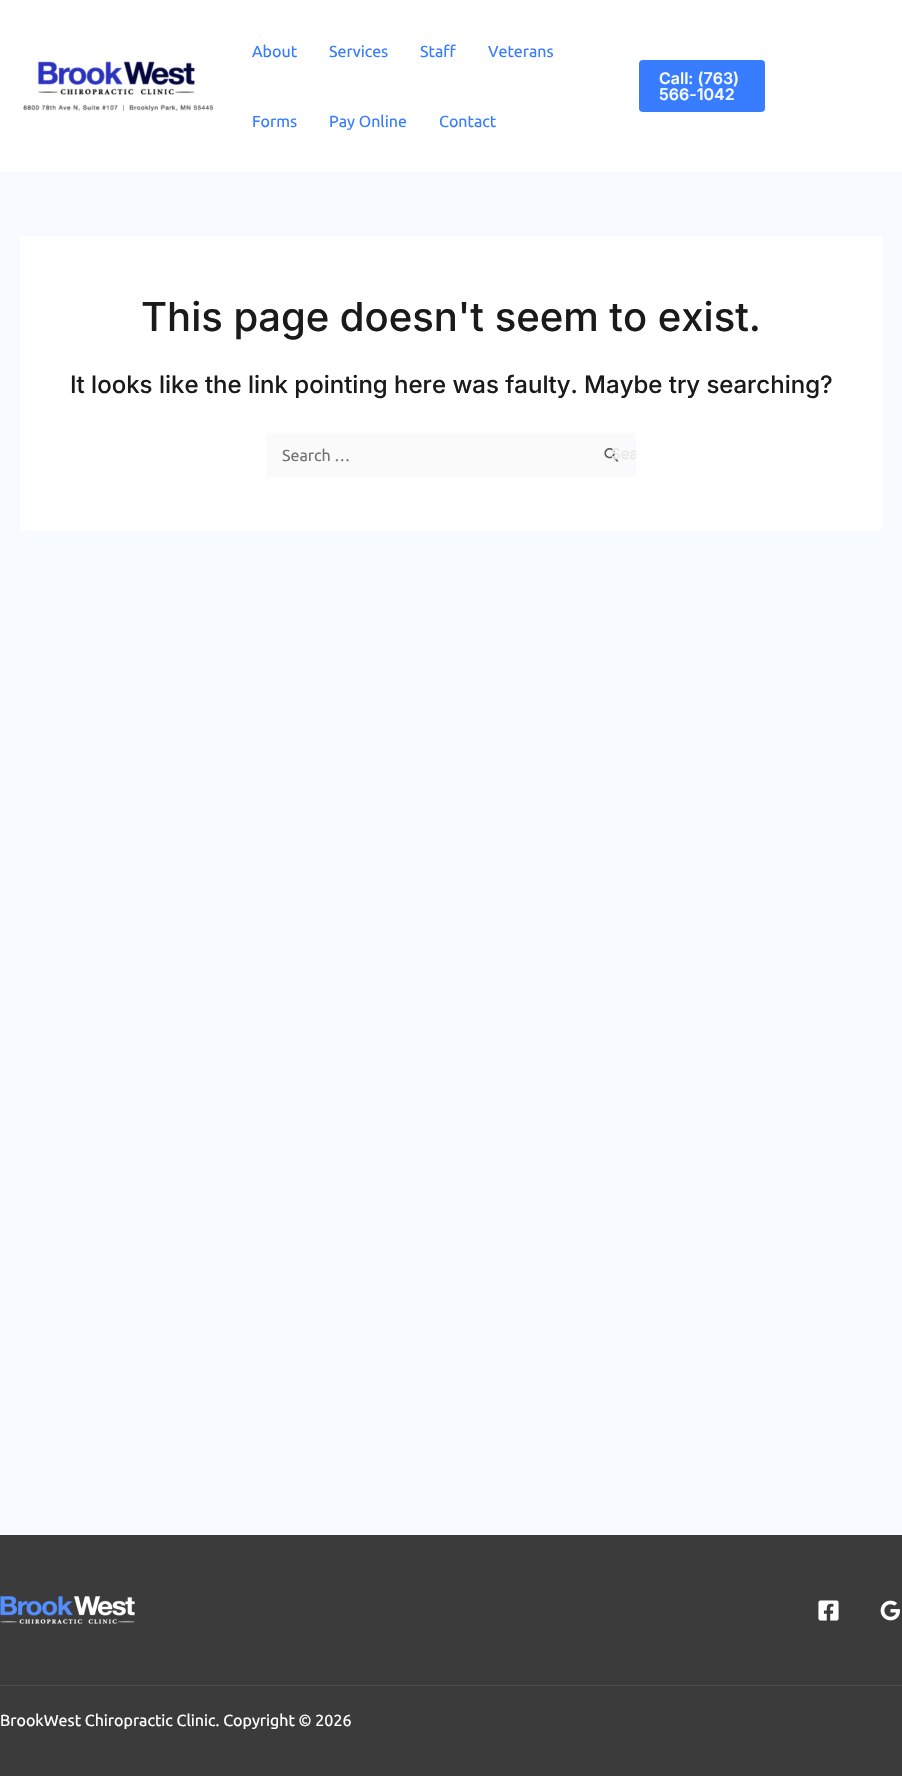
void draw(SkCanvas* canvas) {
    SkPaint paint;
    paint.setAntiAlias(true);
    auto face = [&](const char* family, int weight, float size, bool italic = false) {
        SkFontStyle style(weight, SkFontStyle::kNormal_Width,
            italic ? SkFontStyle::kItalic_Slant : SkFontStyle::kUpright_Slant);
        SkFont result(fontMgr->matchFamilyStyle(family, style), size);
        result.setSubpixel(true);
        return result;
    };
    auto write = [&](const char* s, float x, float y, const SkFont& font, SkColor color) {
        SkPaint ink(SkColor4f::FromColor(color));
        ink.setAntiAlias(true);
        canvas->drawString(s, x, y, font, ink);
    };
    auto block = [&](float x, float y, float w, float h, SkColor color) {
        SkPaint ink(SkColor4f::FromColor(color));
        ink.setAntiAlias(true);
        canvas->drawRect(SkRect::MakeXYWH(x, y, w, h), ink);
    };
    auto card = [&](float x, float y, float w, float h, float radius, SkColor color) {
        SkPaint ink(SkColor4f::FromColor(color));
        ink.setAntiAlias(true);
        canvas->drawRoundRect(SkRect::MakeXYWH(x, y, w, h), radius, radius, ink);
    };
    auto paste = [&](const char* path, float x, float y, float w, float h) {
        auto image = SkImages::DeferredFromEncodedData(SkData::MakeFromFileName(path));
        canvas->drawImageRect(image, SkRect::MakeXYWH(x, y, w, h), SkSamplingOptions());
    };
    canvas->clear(SkColorSetRGB(247, 250, 255));
    block(0, 0, 902, 172, SK_ColorWHITE);
    paste("pic1.png", 23, 61, 191, 51);
    auto kFont1 = face("Ubuntu", 400, 16);
    write("About", 252, 57, kFont1, SkColorSetRGB(56, 125, 255));
    write("Services", 329, 57, kFont1, SkColorSetRGB(56, 125, 255));
    write("Staff", 420, 57, kFont1, SkColorSetRGB(56, 125, 255));
    write("Veterans", 488, 57, kFont1, SkColorSetRGB(56, 125, 255));
    write("Forms", 252, 127, kFont1, SkColorSetRGB(56, 125, 255));
    write("Pay Online", 329, 127, kFont1, SkColorSetRGB(56, 125, 255));
    write("Contact", 439, 127, kFont1, SkColorSetRGB(56, 125, 255));
    card(639, 60, 126, 52, 4, SkColorSetRGB(56, 125, 255));
    auto kFont2 = face("Inter", 600, 16);
    write("Call: (763)", 659, 84, kFont2, SkColorSetRGB(247, 250, 255));
    write("566-1042", 659, 100, kFont2, SkColorSetRGB(247, 250, 255));
    block(20, 236, 862, 294, SK_ColorWHITE);
    auto kFont3 = face("Inter", 500, 40);
    write("This page doesn't seem to exist.", 141, 331, kFont3, SkColorSetRGB(26, 26, 26));
    auto kFont4 = face("Inter", 500, 24);
    write("It looks like the link pointing here was faulty. Maybe try searching?", 70, 393, kFont4, SkColorSetRGB(26, 26, 26));
    paint.setColor(SkColorSetRGB(250, 250, 250));
    canvas->drawRoundRect(SkRect::MakeXYWH(266.5f, 433.5f, 369, 43), 1.5f, 1.5f, paint);
    paint.setStyle(SkPaint::kStroke_Style);
    paint.setStrokeWidth(1);
    paint.setColor(SkColorSetRGB(247, 250, 255));
    canvas->drawRoundRect(SkRect::MakeXYWH(266.5f, 433.5f, 369, 43), 1.5f, 1.5f, paint);
    write("Search …", 282, 461, kFont1, SkColorSetRGB(117, 117, 117));
    paste("pic2.png", 604, 448, 15, 14);
    canvas->save();
    canvas->clipPath(SkPathBuilder().moveTo(593, 433).lineTo(634, 433).cubicTo(635, 433, 636, 434, 636, 435).lineTo(636, 472).cubicTo(636, 473, 635, 474, 634, 474).lineTo(593, 474).cubicTo(592, 474, 591, 473, 591, 472).lineTo(591, 435).cubicTo(591, 434, 592, 433, 593, 433).close().detach(), true);
    auto kFont5 = face("Inter", 500, 15);
    write("Sea", 611, 459, kFont5, SkColorSetRGB(233, 233, 233));
    canvas->restore();
    block(0, 1535, 902, 150, SkColorSetRGB(59, 59, 59));
    paste("pic3.png", 0, 1596, 135, 28);
    paste("pic4.png", 818, 1600, 21, 21);
    paste("pic5.png", 880, 1600, 20, 21);
    block(0, 1686, 902, 90, SkColorSetRGB(59, 59, 59));
    block(0, 1685, 902, 1, SkColorSetRGB(75, 75, 75));
    write("BrookWest Chiropractic Clinic. Copyright © 2026", 0, 1726, kFont1, SK_ColorWHITE);
}
